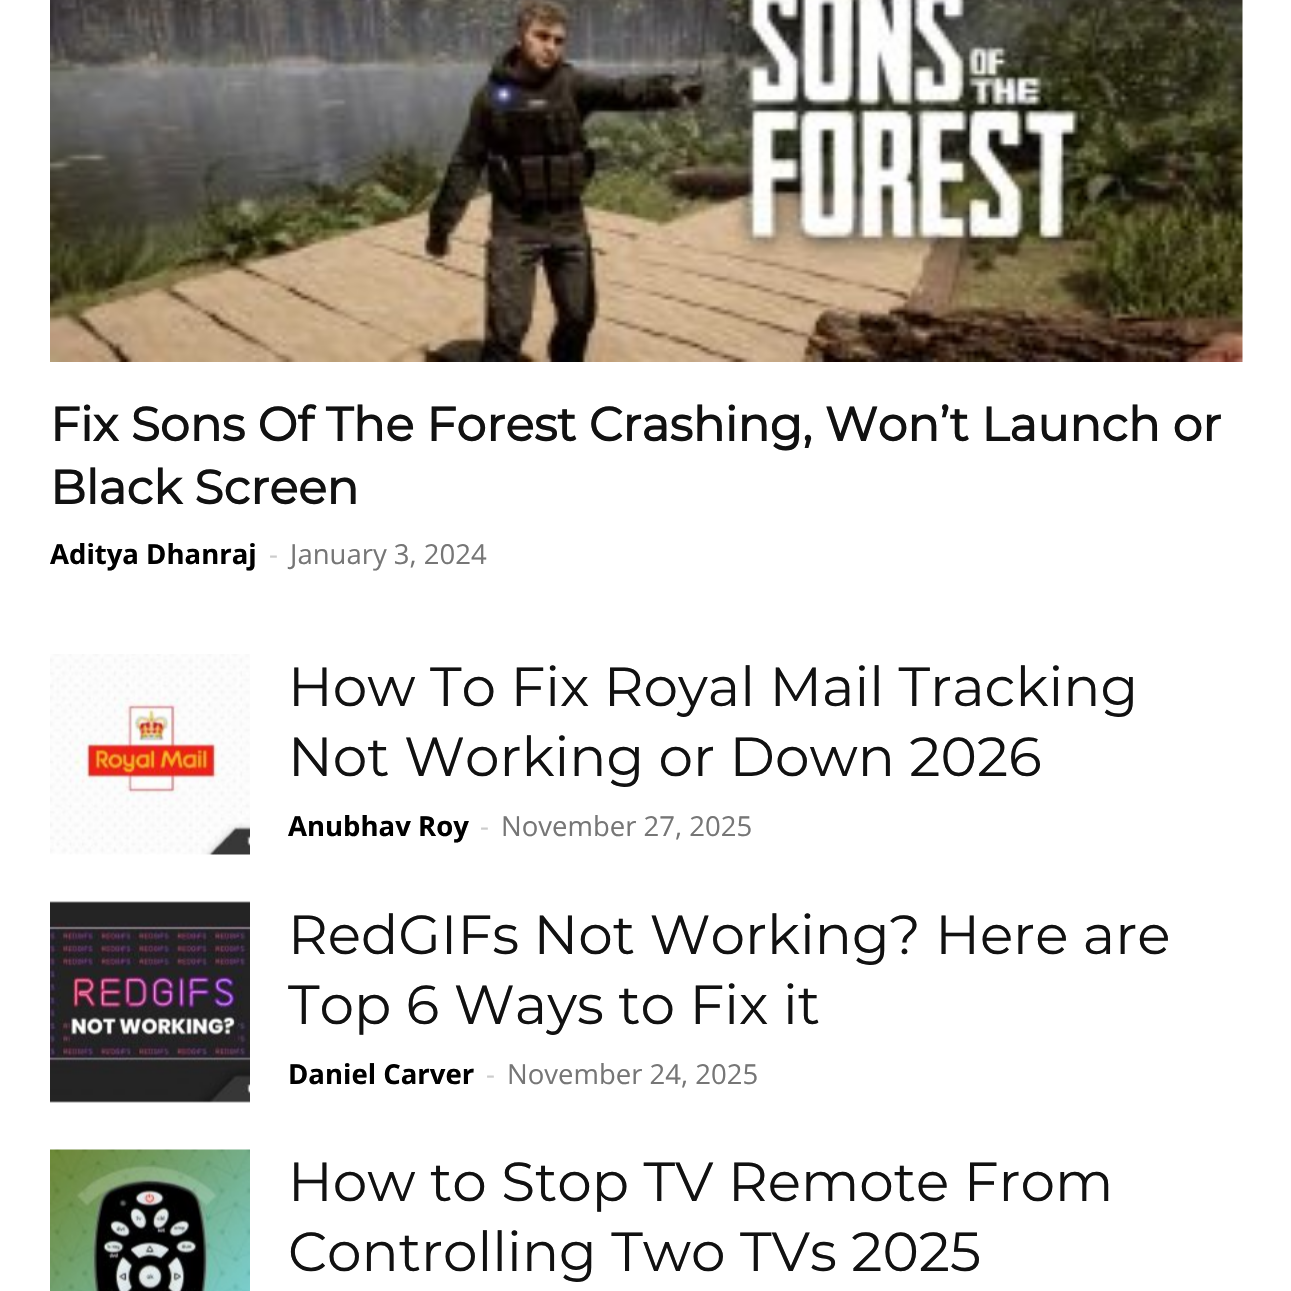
void draw(SkCanvas* canvas) {
    SkPaint paint;
    paint.setAntiAlias(true);
    auto face = [&](const char* family, int weight, float size, bool italic = false) {
        SkFontStyle style(weight, SkFontStyle::kNormal_Width,
            italic ? SkFontStyle::kItalic_Slant : SkFontStyle::kUpright_Slant);
        SkFont result(fontMgr->matchFamilyStyle(family, style), size);
        result.setSubpixel(true);
        return result;
    };
    auto write = [&](const char* s, float x, float y, const SkFont& font, SkColor color) {
        SkPaint ink(SkColor4f::FromColor(color));
        ink.setAntiAlias(true);
        canvas->drawString(s, x, y, font, ink);
    };
    auto paste = [&](const char* path, float x, float y, float w, float h) {
        auto image = SkImages::DeferredFromEncodedData(SkData::MakeFromFileName(path));
        canvas->drawImageRect(image, SkRect::MakeXYWH(x, y, w, h), SkSamplingOptions());
    };
    canvas->clear(SK_ColorWHITE);
    paste("pic1.png", 50, 0, 1193, 362);
    auto kFont1 = face("Montserrat", 700, 47.5f);
    write("Fix Sons Of The Forest Crashing, Won’t Launch or", 50, 441, kFont1, SkColorSetRGB(17, 17, 17));
    write("Black Screen", 50, 504, kFont1, SkColorSetRGB(17, 17, 17));
    auto kFont2 = face("Open Sans", 700, 27.5f);
    write("Aditya Dhanraj", 50, 564, kFont2, SK_ColorBLACK);
    auto kFont3 = face("Open Sans", 400, 27.5f);
    write("-", 269, 564, kFont3, SkColorSetRGB(204, 204, 204));
    write("January 3, 2024", 290, 564, kFont3, SkColorSetRGB(118, 118, 118));
    paste("pic2.png", 50, 654, 200, 201);
    auto kFont4 = face("Montserrat", 100, 55);
    write("How To Fix Royal Mail Tracking", 288, 706, kFont4, SkColorSetRGB(17, 17, 17));
    write("Not Working or Down 2026", 288, 776, kFont4, SkColorSetRGB(17, 17, 17));
    write("Anubhav Roy", 288, 836, kFont2, SK_ColorBLACK);
    write("-", 480, 836, kFont3, SkColorSetRGB(204, 204, 204));
    write("November 27, 2025", 501, 836, kFont3, SkColorSetRGB(118, 118, 118));
    paste("pic3.png", 50, 901, 200, 202);
    write("RedGIFs Not Working? Here are", 288, 954, kFont4, SkColorSetRGB(17, 17, 17));
    write("Top 6 Ways to Fix it", 288, 1024, kFont4, SkColorSetRGB(17, 17, 17));
    write("Daniel Carver", 288, 1084, kFont2, SK_ColorBLACK);
    write("-", 486, 1084, kFont3, SkColorSetRGB(204, 204, 204));
    write("November 24, 2025", 507, 1084, kFont3, SkColorSetRGB(118, 118, 118));
    paste("pic4.png", 50, 1149, 200, 142);
    write("How to Stop TV Remote From", 288, 1201, kFont4, SkColorSetRGB(17, 17, 17));
    write("Controlling Two TVs 2025", 288, 1271, kFont4, SkColorSetRGB(17, 17, 17));
}
